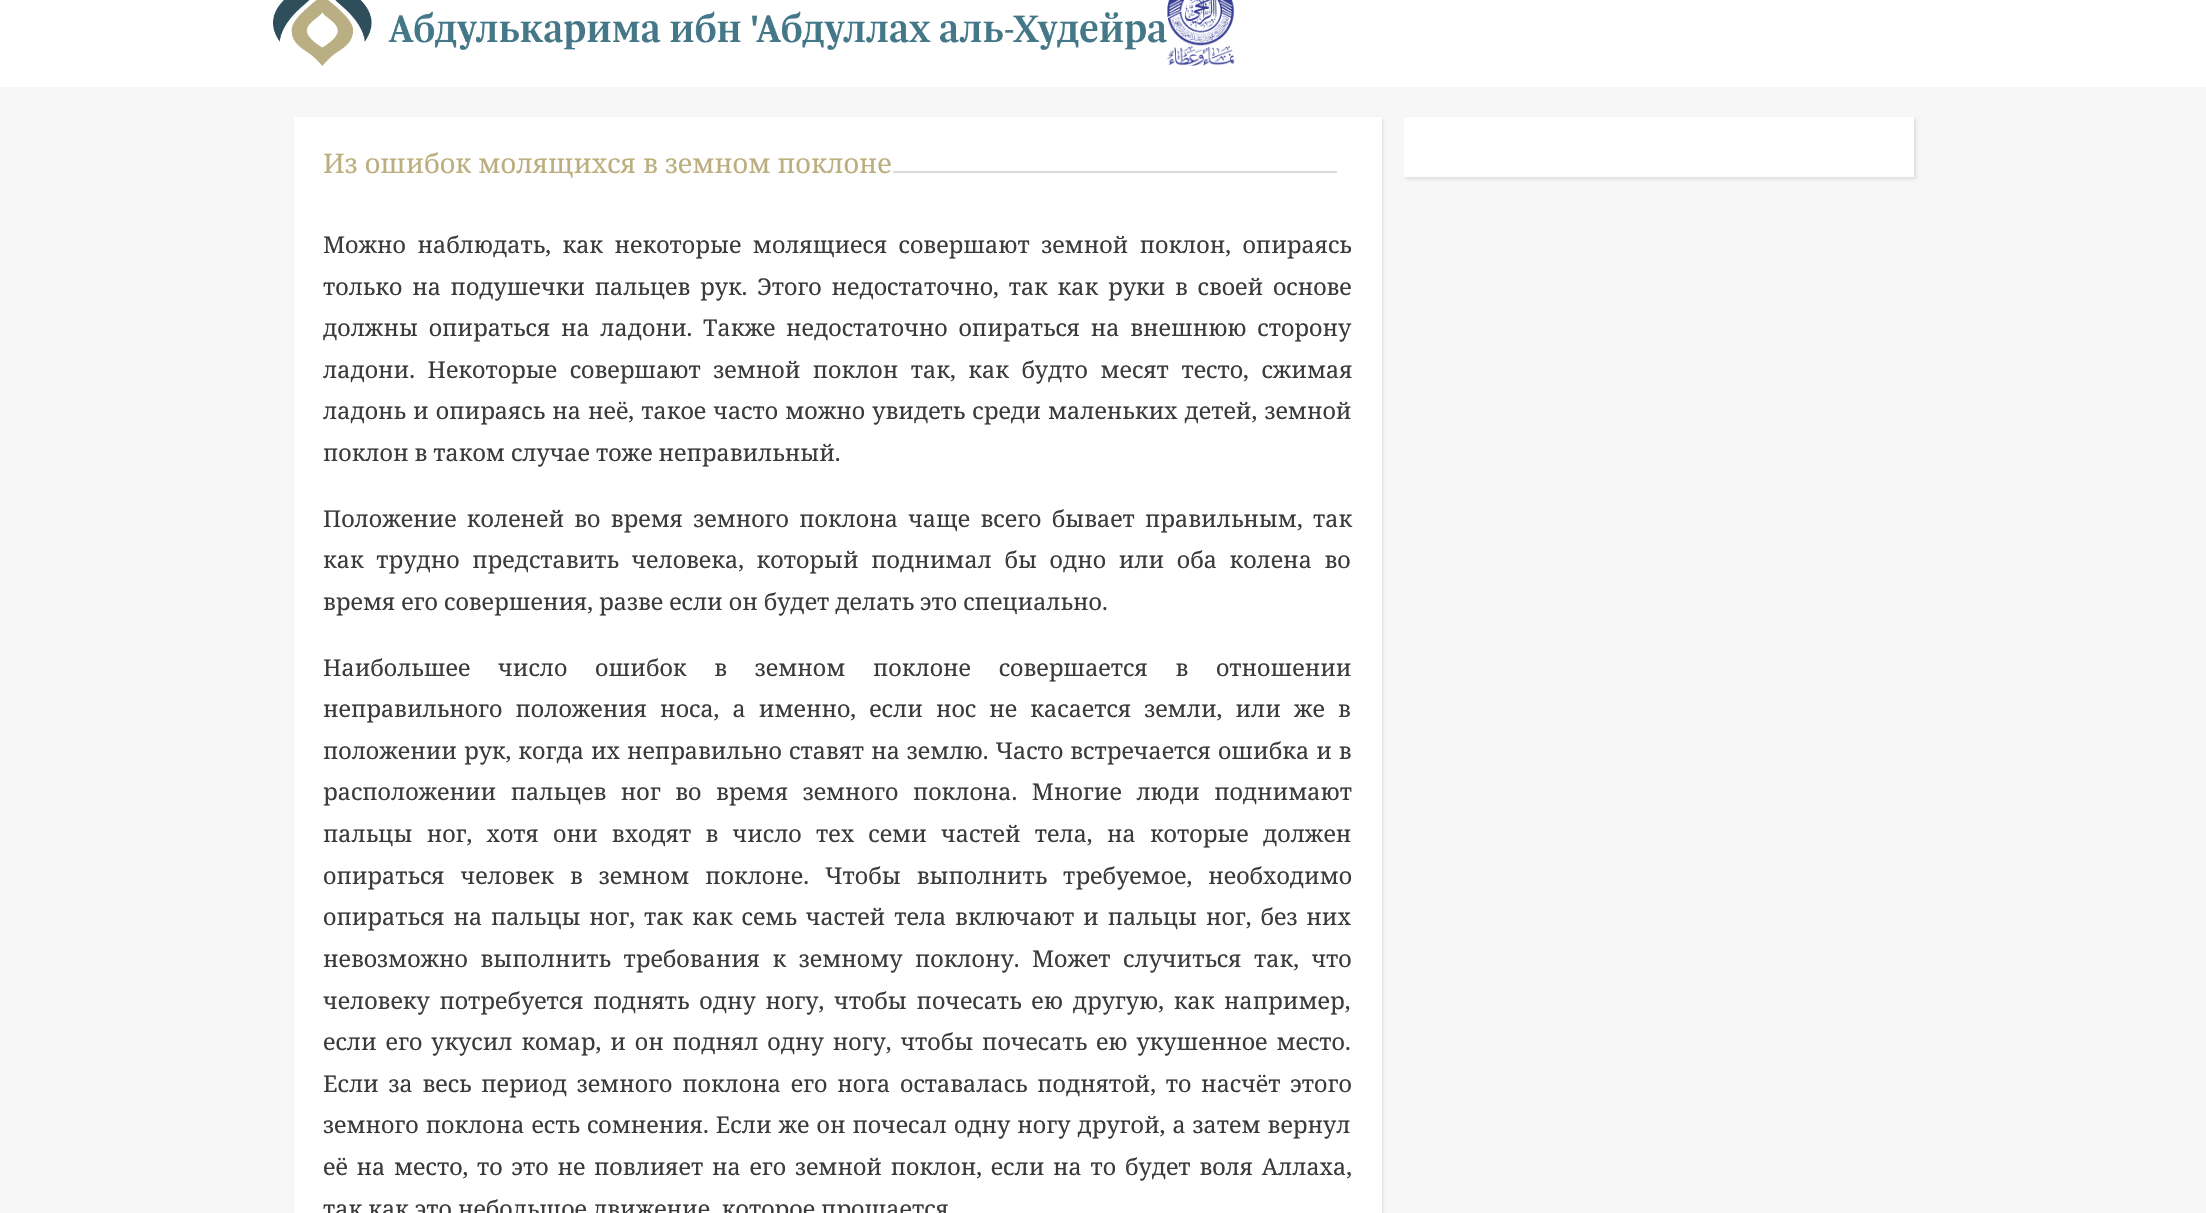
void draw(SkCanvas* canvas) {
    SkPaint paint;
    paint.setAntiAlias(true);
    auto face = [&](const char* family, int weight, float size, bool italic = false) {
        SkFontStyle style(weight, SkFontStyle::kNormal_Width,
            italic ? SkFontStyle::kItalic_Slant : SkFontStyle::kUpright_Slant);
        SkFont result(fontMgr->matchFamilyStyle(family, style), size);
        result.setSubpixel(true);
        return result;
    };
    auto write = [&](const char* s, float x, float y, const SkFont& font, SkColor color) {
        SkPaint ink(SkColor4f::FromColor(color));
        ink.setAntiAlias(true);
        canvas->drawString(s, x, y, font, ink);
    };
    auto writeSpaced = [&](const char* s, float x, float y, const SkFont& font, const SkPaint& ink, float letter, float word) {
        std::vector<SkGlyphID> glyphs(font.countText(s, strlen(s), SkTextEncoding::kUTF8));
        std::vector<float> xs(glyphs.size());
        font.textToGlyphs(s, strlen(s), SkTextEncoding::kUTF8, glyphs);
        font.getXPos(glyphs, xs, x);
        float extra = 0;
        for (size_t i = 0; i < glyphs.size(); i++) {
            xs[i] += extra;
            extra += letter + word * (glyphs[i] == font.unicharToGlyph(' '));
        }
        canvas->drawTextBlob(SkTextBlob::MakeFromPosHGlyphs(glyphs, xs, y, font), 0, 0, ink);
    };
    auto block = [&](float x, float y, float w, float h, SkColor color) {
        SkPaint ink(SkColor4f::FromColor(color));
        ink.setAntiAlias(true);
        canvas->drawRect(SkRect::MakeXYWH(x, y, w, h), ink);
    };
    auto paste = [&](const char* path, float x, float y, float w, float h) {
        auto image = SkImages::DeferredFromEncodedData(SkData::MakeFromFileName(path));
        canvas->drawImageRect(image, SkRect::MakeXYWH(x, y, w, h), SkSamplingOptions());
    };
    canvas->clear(SkColorSetRGB(247, 247, 247));
    block(0, 0, 2206, 87, SK_ColorWHITE);
    paste("pic1.png", 273, 0, 894, 66);
    paste("pic2.png", 1167, 0, 68, 66);
    paint.setColor(SkColorSetARGB(26, 0, 0, 0));
    paint.setMaskFilter(SkMaskFilter::MakeBlur(kNormal_SkBlurStyle, 1.5f));
    canvas->drawRect(SkRect::MakeXYWH(296, 119, 1087, 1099), paint);
    paint.setMaskFilter(nullptr);
    block(294, 117, 1088, 1096, SK_ColorWHITE);
    auto kFont1 = face("Noto Serif", 400, 27);
    write("Из ошибок молящихся в земном поклоне", 323, 173, kFont1, SkColorSetRGB(188, 175, 127));
    block(893, 171, 444, 2, SkColorSetRGB(218, 218, 218));
    auto kFont2 = face("Noto Serif", 400, 23.15f);
    paint.setColor(SkColorSetRGB(59, 59, 59));
    writeSpaced("Можно наблюдать, как некоторые молящиеся совершают земной поклон, опираясь", 323, 253, kFont2, paint, 0, 5.5f);
    writeSpaced("только на подушечки пальцев рук. Этого недостаточно, так как руки в своей основе", 323, 295, kFont2, paint, 0, 3.75f);
    writeSpaced("должны опираться на ладони. Также недостаточно опираться на внешнюю сторону", 323, 336, kFont2, paint, 0, 4.75f);
    writeSpaced("ладони. Некоторые совершают земной поклон так, как будто месят тесто, сжимая", 323, 378, kFont2, paint, 0, 6.5f);
    writeSpaced("ладонь и опираясь на неё, такое часто можно увидеть среди маленьких детей, земной", 323, 419, kFont2, paint, 0, 1.1f);
    write("поклон в таком случае тоже неправильный.", 323, 461, kFont2, SkColorSetRGB(59, 59, 59));
    writeSpaced("Положение коленей во время земного поклона чаще всего бывает правильным, так", 323, 527, kFont2, paint, 0, 4.25f);
    writeSpaced("как трудно представить человека, который поднимал бы одно или оба колена во", 323, 568, kFont2, paint, 0, 6.6f);
    write("время его совершения, разве если он будет делать это специально.", 323, 610, kFont2, SkColorSetRGB(59, 59, 59));
    writeSpaced("Наибольшее число ошибок в земном поклоне совершается в отношении", 323, 676, kFont2, paint, 0, 21.75f);
    writeSpaced("неправильного положения носа, а именно, если нос не касается земли, или же в", 323, 717, kFont2, paint, 0, 7.1f);
    writeSpaced("положении рук, когда их неправильно ставят на землю. Часто встречается ошибка и в", 323, 759, kFont2, paint, 0, 1);
    writeSpaced("расположении пальцев ног во время земного поклона. Многие люди поднимают", 323, 800, kFont2, paint, 0, 8.5f);
    writeSpaced("пальцы ног, хотя они входят в число тех семи частей тела, на которые должен", 323, 842, kFont2, paint, 0, 8.25f);
    writeSpaced("опираться человек в земном поклоне. Чтобы выполнить требуемое, необходимо", 323, 884, kFont2, paint, 0, 10);
    writeSpaced("опираться на пальцы ног, так как семь частей тела включают и пальцы ног, без них", 323, 925, kFont2, paint, 0, 2.9f);
    writeSpaced("невозможно выполнить требования к земному поклону. Может случиться так, что", 323, 967, kFont2, paint, 0, 6.5f);
    writeSpaced("человеку потребуется поднять одну ногу, чтобы почесать ею другую, как например,", 323, 1009, kFont2, paint, 0, 3.75f);
    writeSpaced("если его укусил комар, и он поднял одну ногу, чтобы почесать ею укушенное место.", 323, 1050, kFont2, paint, 0, 2.9f);
    writeSpaced("Если за весь период земного поклона его нога оставалась поднятой, то насчёт этого", 323, 1092, kFont2, paint, 0, 3.75f);
    writeSpaced("земного поклона есть сомнения. Если же он почесал одну ногу другой, а затем вернул", 323, 1133, kFont2, paint, 0, 1);
    writeSpaced("её на место, то это не повлияет на его земной поклон, если на то будет воля Аллаха,", 323, 1175, kFont2, paint, 0, 2.75f);
    write("так как это небольшое движение, которое прощается", 323, 1217, kFont2, SkColorSetRGB(59, 59, 59));
    paint.setColor(SkColorSetARGB(26, 0, 0, 0));
    paint.setMaskFilter(SkMaskFilter::MakeBlur(kNormal_SkBlurStyle, 1.5f));
    canvas->drawRect(SkRect::MakeXYWH(1406, 119, 510, 60), paint);
    paint.setMaskFilter(nullptr);
    block(1404, 117, 510, 60, SK_ColorWHITE);
}
